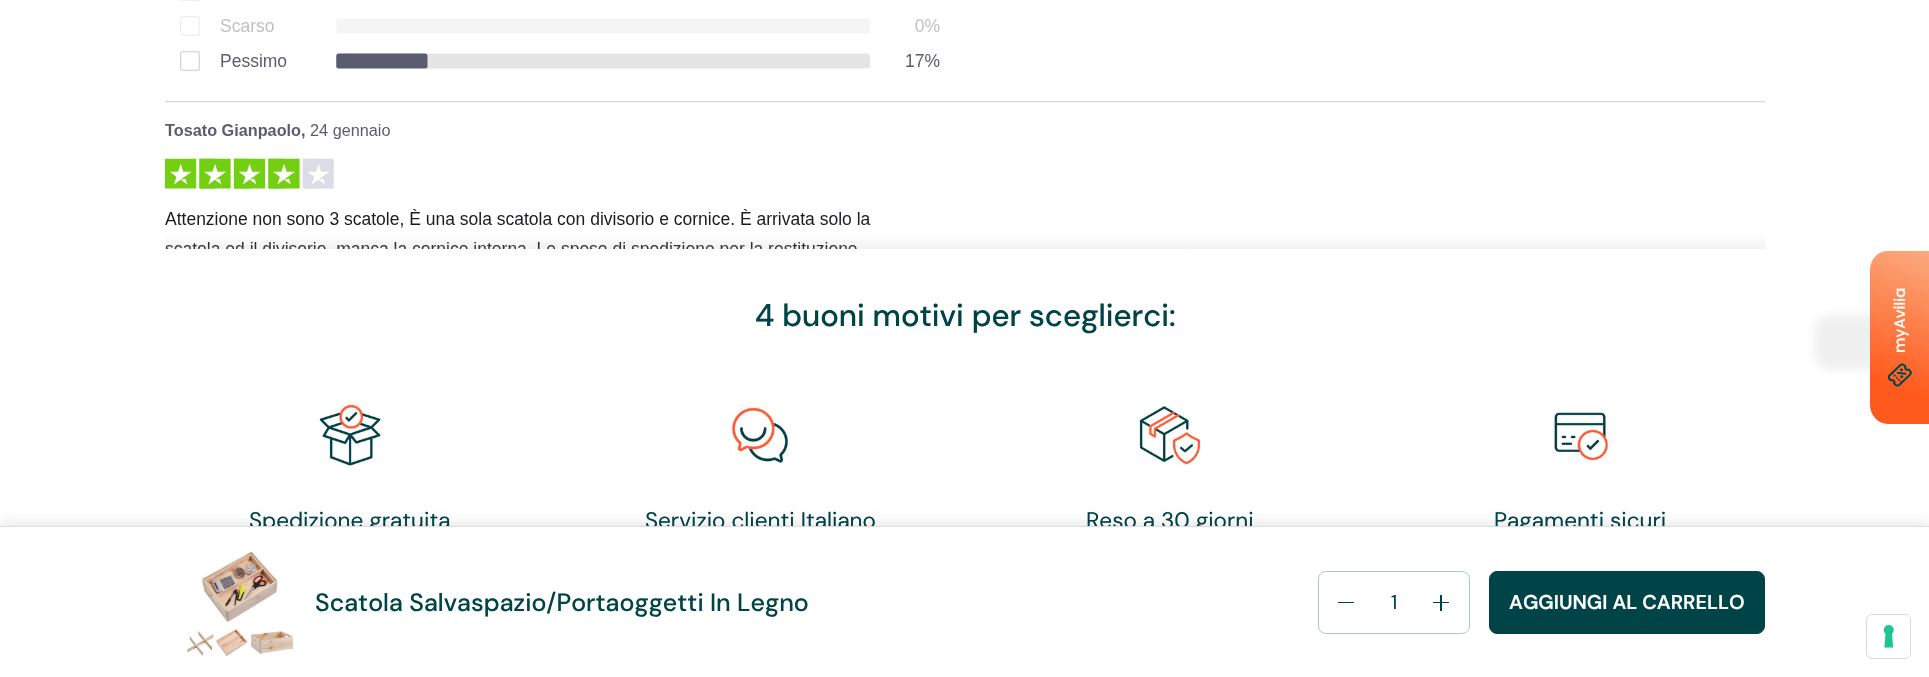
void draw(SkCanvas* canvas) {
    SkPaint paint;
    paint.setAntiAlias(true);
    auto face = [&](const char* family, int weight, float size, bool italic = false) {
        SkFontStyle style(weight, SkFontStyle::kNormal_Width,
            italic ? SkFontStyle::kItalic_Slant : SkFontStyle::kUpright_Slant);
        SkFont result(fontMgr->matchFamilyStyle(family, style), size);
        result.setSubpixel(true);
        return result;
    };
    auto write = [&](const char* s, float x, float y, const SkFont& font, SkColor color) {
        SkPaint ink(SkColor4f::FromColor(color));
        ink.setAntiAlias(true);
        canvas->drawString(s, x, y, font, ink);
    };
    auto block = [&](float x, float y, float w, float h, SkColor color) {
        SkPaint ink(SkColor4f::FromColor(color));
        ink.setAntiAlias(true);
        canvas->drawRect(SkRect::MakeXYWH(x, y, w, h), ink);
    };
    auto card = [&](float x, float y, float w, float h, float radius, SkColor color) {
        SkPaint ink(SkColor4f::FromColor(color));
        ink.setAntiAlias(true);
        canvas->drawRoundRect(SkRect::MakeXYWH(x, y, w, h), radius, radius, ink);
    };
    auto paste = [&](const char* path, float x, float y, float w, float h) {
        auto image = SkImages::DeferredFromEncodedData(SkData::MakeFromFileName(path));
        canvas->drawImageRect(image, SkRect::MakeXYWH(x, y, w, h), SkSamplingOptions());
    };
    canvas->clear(SK_ColorWHITE);
    paste("pic1.png", 165, 0, 1600, 249);
    auto kFont1 = face("DM Sans", 500, 31.25f);
    write("4 buoni motivi per sceglierci:", 755, 326, kFont1, SkColorSetRGB(0, 68, 72));
    paste("pic2.png", 319, 404, 62, 62);
    auto kFont2 = face("DM Sans", 400, 22.5f);
    write("Spedizione gratuita", 249, 528, kFont2, SkColorSetRGB(0, 68, 72));
    paste("pic3.png", 731, 405, 59, 59);
    write("Servizio clienti Italiano", 645, 528, kFont2, SkColorSetRGB(0, 68, 72));
    paste("pic4.png", 1139, 405, 62, 60);
    write("Reso a 30 giorni", 1086, 528, kFont2, SkColorSetRGB(0, 68, 72));
    paste("pic5.png", 1553, 411, 57, 50);
    write("Pagamenti sicuri", 1494, 528, kFont2, SkColorSetRGB(0, 68, 72));
    paint.setColor(SkColorSetARGB(26, 0, 0, 0));
    paint.setMaskFilter(SkMaskFilter::MakeBlur(kNormal_SkBlurStyle, 6));
    canvas->drawRect(SkRect::MakeXYWH(0, 524, 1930, 151), paint);
    paint.setMaskFilter(nullptr);
    block(0, 527, 1929, 150, SK_ColorWHITE);
    block(0, 526, 1929, 1, SkColorSetRGB(221, 221, 221));
    paste("pic6.png", 187, 551, 107, 106);
    auto kFont3 = face("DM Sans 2", 500, 25);
    write("Scatola Salvaspazio/Portaoggetti In Legno", 315, 611, kFont3, SkColorSetRGB(0, 68, 72));
    paint.setStyle(SkPaint::kStroke_Style);
    paint.setStrokeWidth(1);
    paint.setColor(SkColorSetRGB(179, 199, 200));
    canvas->drawRoundRect(SkRect::MakeXYWH(1318.5f, 571.5f, 151, 62), 7.5f, 7.5f, paint);
    block(1338, 602, 16, 1, SkColorSetRGB(0, 68, 72));
    auto kFont4 = face("DM Sans", 400, 20);
    write("1", 1391, 609, kFont4, SkColorSetRGB(0, 68, 72));
    block(1440, 595, 2, 16, SkColorSetRGB(0, 68, 72));
    block(1433, 602, 16, 1, SkColorSetRGB(0, 68, 72));
    paint.setStyle(SkPaint::kFill_Style);
    paint.setColor(SkColorSetRGB(0, 68, 72));
    canvas->drawRoundRect(SkRect::MakeXYWH(1489.5f, 571.5f, 275, 62), 7.5f, 7.5f, paint);
    paint.setStyle(SkPaint::kStroke_Style);
    canvas->drawRoundRect(SkRect::MakeXYWH(1489.5f, 571.5f, 275, 62), 7.5f, 7.5f, paint);
    auto kFont5 = face("DM Sans", 600, 20);
    write("AGGIUNGI AL CARRELLO", 1509, 609, kFont5, SK_ColorWHITE);
    paint.setStyle(SkPaint::kFill_Style);
    paint.setColor(SkColorSetARGB(20, 68, 68, 68));
    paint.setMaskFilter(SkMaskFilter::MakeBlur(kNormal_SkBlurStyle, 5));
    canvas->drawRoundRect(SkRect::MakeXYWH(1815, 315, 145, 55), 16, 16, paint);
    paint.setMaskFilter(nullptr);
    {
        const SkColor colors[] = {SkColorSetRGB(255, 90, 29), SkColorSetRGB(249, 213, 177)};
        const float stops[] = {0.17f, 1};
        const SkPoint ends[] = {{1869, 424}, {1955, 182}};
        paint.setShader(SkGradientShader::MakeLinear(ends, colors, stops, 2, SkTileMode::kClamp));
        paint.setAlpha(255);
    }
    canvas->drawPath(SkPathBuilder().moveTo(1870, 405).lineTo(1870, 270).cubicTo(1870, 259, 1878, 251, 1888, 251).lineTo(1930, 251).lineTo(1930, 424).lineTo(1888, 424).cubicTo(1878, 424, 1870, 415, 1870, 405).close().detach(), paint);
    auto kFont6 = face("Poppins", 500, 15);
    canvas->save();
    canvas->rotate(-90, 1905, 353);
    write("myAvilia", 1905, 353, kFont6, SK_ColorWHITE);
    canvas->restore();
    paste("pic7.png", 1888, 363, 24, 24);
    paint.setStyle(SkPaint::kStroke_Style);
    paint.setShader(nullptr);
    paint.setColor(SkColorSetRGB(217, 217, 217));
    canvas->drawRoundRect(SkRect::MakeXYWH(1866.5f, 614.5f, 44, 44), 5.5f, 5.5f, paint);
    card(1868, 615, 42, 43, 5, SK_ColorWHITE);
    paste("pic8.png", 1883, 625, 11, 23);
}
